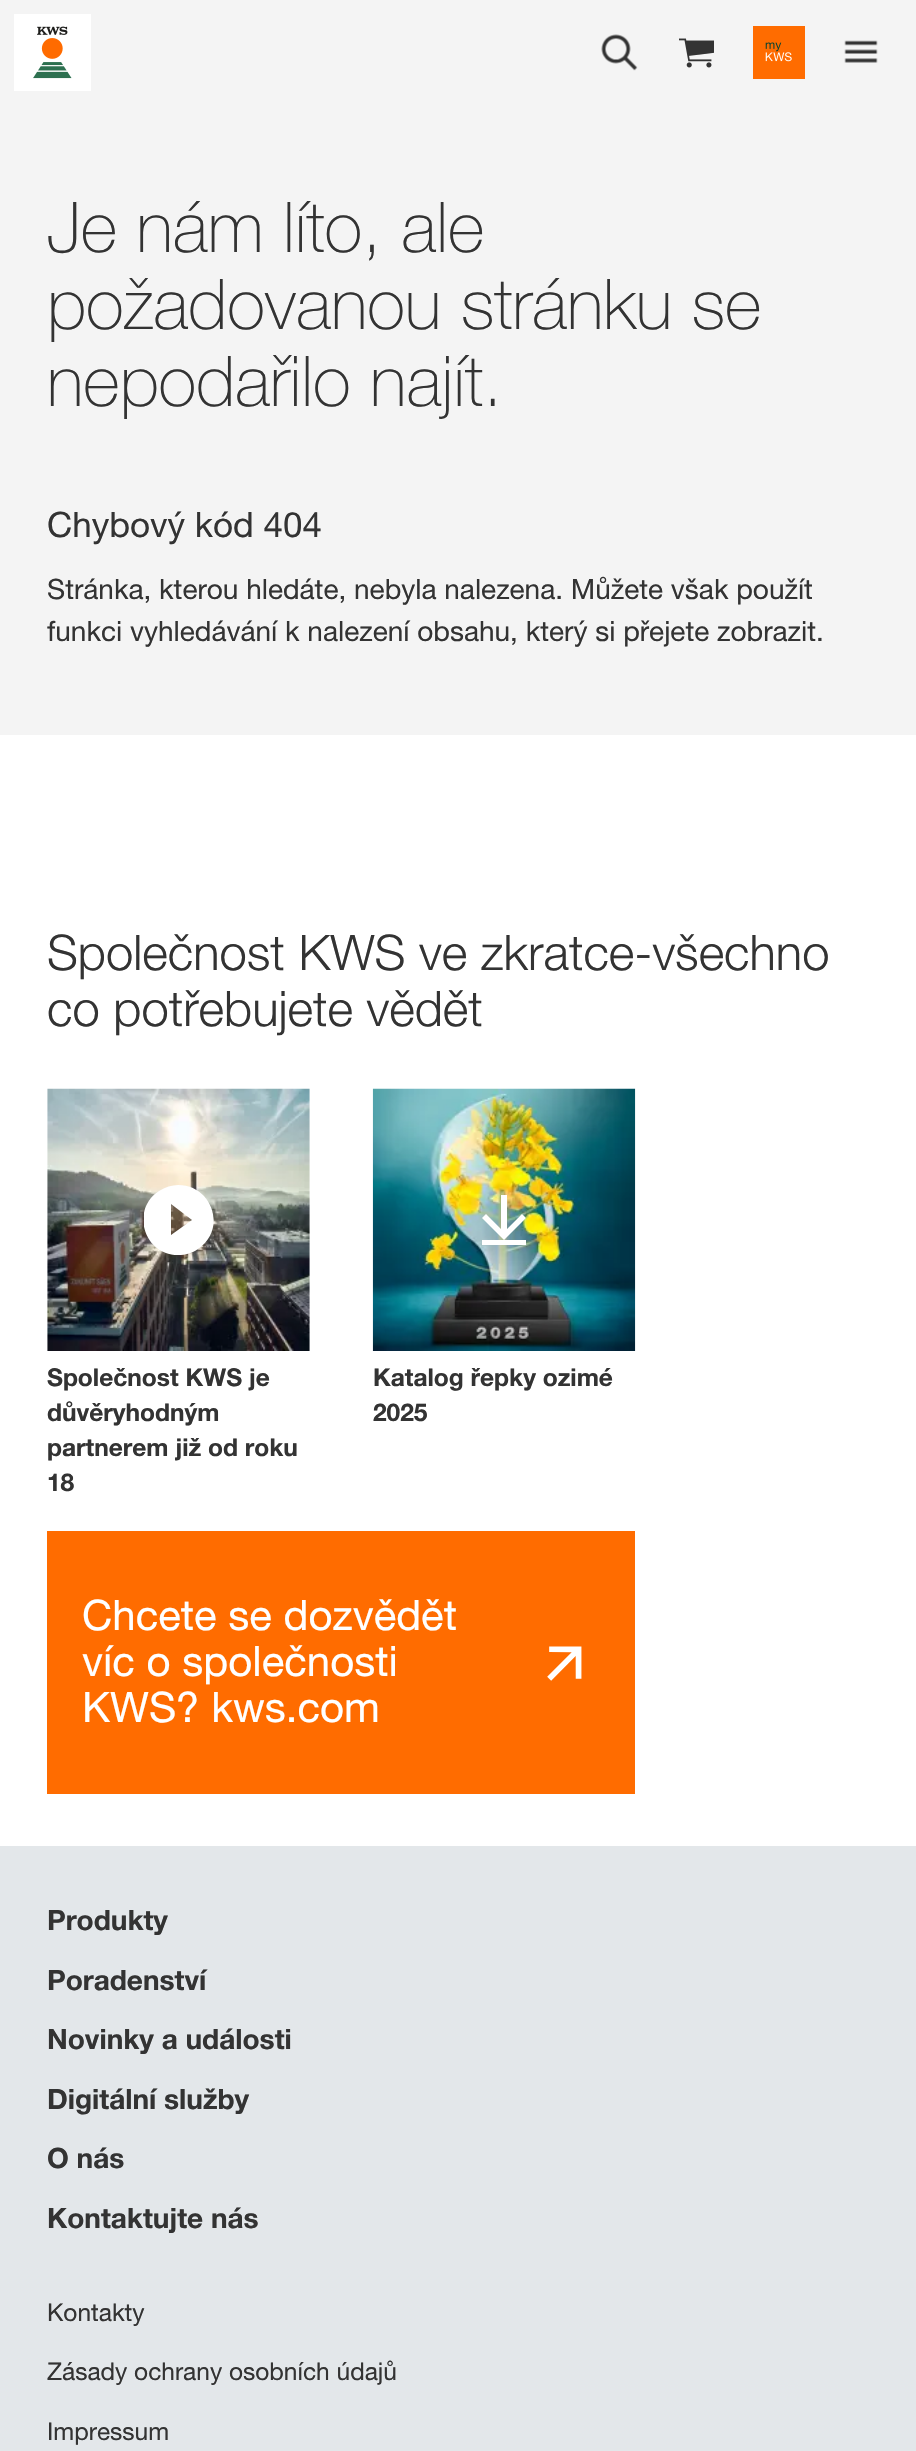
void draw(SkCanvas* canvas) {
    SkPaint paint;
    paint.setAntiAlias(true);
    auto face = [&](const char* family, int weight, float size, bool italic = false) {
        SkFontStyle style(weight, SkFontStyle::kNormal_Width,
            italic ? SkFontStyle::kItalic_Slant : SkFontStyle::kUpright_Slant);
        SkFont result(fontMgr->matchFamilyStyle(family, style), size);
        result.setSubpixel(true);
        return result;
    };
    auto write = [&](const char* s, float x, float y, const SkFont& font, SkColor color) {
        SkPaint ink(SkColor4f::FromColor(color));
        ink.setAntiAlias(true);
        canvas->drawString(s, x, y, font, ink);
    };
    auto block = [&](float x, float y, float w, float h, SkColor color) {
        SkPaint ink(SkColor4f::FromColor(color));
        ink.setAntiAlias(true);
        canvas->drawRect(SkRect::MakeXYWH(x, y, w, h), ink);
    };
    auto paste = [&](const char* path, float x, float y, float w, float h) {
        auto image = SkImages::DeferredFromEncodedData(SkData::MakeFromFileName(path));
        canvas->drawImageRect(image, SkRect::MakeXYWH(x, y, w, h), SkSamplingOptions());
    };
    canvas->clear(SkColorSetRGB(244, 244, 244));
    paste("pic1.png", 14, 14, 77, 77);
    paste("pic2.png", 601, 34, 37, 37);
    paste("pic3.png", 679, 38, 35, 30);
    paste("pic4.png", 753, 26, 52, 53);
    paste("pic5.png", 844, 40, 34, 23);
    auto kFont1 = face("Helvetica Neue", 100, 70);
    write("Je nám líto, ale", 47, 252, kFont1, SkColorSetRGB(51, 51, 51));
    write("požadovanou stránku se", 47, 329, kFont1, SkColorSetRGB(51, 51, 51));
    write("nepodařilo najít.", 47, 406, kFont1, SkColorSetRGB(51, 51, 51));
    auto kFont2 = face("Helvetica Neue", 400, 35);
    write("Chybový kód 404", 47, 537, kFont2, SkColorSetRGB(51, 51, 51));
    auto kFont3 = face("Helvetica Neue", 400, 28);
    write("Stránka, kterou hledáte, nebyla nalezena. Můžete však použít", 47, 599, kFont3, SkColorSetRGB(51, 51, 51));
    write("funkci vyhledávání k nalezení obsahu, který si přejete zobrazit.", 47, 641, kFont3, SkColorSetRGB(51, 51, 51));
    block(0, 735, 916, 1111, SK_ColorWHITE);
    auto kFont4 = face("Helvetica Neue", 300, 49);
    write("Společnost KWS ve zkratce-všechno", 47, 970, kFont4, SkColorSetRGB(51, 51, 51));
    write("co potřebujete vědět", 47, 1026, kFont4, SkColorSetRGB(51, 51, 51));
    paste("pic6.png", 47, 1088, 263, 263);
    canvas->save();
    canvas->clipRect(SkRect::MakeXYWH(144, 1185, 70, 70));
    paint.setColor(SK_ColorWHITE);
    canvas->drawPath(SkPathBuilder(SkPathFillType::kEvenOdd).moveTo(171, 1235).lineTo(192, 1220).lineTo(171, 1204).close().moveTo(178, 1185).cubicTo(213, 1185, 227, 1230, 198, 1249).cubicTo(192, 1253, 186, 1255, 178, 1255).cubicTo(144, 1255, 130, 1210, 159, 1191).cubicTo(165, 1187, 172, 1185, 178, 1185).close().detach(), paint);
    canvas->restore();
    auto kFont5 = face("Helvetica Neue", 700, 24.5f);
    write("Společnost KWS je", 47, 1386, kFont5, SkColorSetRGB(51, 51, 51));
    write("důvěryhodným", 47, 1421, kFont5, SkColorSetRGB(51, 51, 51));
    write("partnerem již od roku", 47, 1456, kFont5, SkColorSetRGB(51, 51, 51));
    write("18", 47, 1491, kFont5, SkColorSetRGB(51, 51, 51));
    paste("pic7.png", 372, 1088, 264, 263);
    canvas->drawPath(SkPathBuilder(SkPathFillType::kEvenOdd).moveTo(507, 1195).lineTo(501, 1195).lineTo(501, 1229).lineTo(486, 1214).lineTo(482, 1218).lineTo(504, 1240).lineTo(482, 1240).lineTo(482, 1245).lineTo(526, 1245).lineTo(526, 1240).lineTo(504, 1240).lineTo(526, 1218).lineTo(522, 1214).lineTo(507, 1229).close().detach(), paint);
    write("Katalog řepky ozimé", 373, 1386, kFont5, SkColorSetRGB(51, 51, 51));
    write("2025", 373, 1421, kFont5, SkColorSetRGB(51, 51, 51));
    block(47, 1531, 588, 263, SkColorSetRGB(255, 108, 0));
    auto kFont6 = face("Helvetica Neue", 400, 42);
    write("Chcete se dozvědět", 82, 1630, kFont6, SK_ColorWHITE);
    write("víc o společnosti", 82, 1676, kFont6, SK_ColorWHITE);
    write("KWS? kws.com", 82, 1722, kFont6, SK_ColorWHITE);
    paste("pic8.png", 547, 1646, 35, 35);
    block(0, 1846, 916, 605, SkColorSetRGB(227, 231, 234));
    auto kFont7 = face("Helvetica Neue", 700, 28);
    write("Produkty", 47, 1930, kFont7, SkColorSetRGB(51, 51, 51));
    write("Poradenství", 47, 1990, kFont7, SkColorSetRGB(51, 51, 51));
    write("Novinky a události", 47, 2049, kFont7, SkColorSetRGB(51, 51, 51));
    write("Digitální služby", 47, 2109, kFont7, SkColorSetRGB(51, 51, 51));
    write("O nás", 47, 2168, kFont7, SkColorSetRGB(51, 51, 51));
    write("Kontaktujte nás", 47, 2228, kFont7, SkColorSetRGB(51, 51, 51));
    auto kFont8 = face("Helvetica Neue", 400, 24.5f);
    write("Kontakty", 47, 2321, kFont8, SkColorSetRGB(51, 51, 51));
    write("Zásady ochrany osobních údajů", 47, 2380, kFont8, SkColorSetRGB(51, 51, 51));
    write("Impressum", 47, 2440, kFont8, SkColorSetRGB(51, 51, 51));
}
